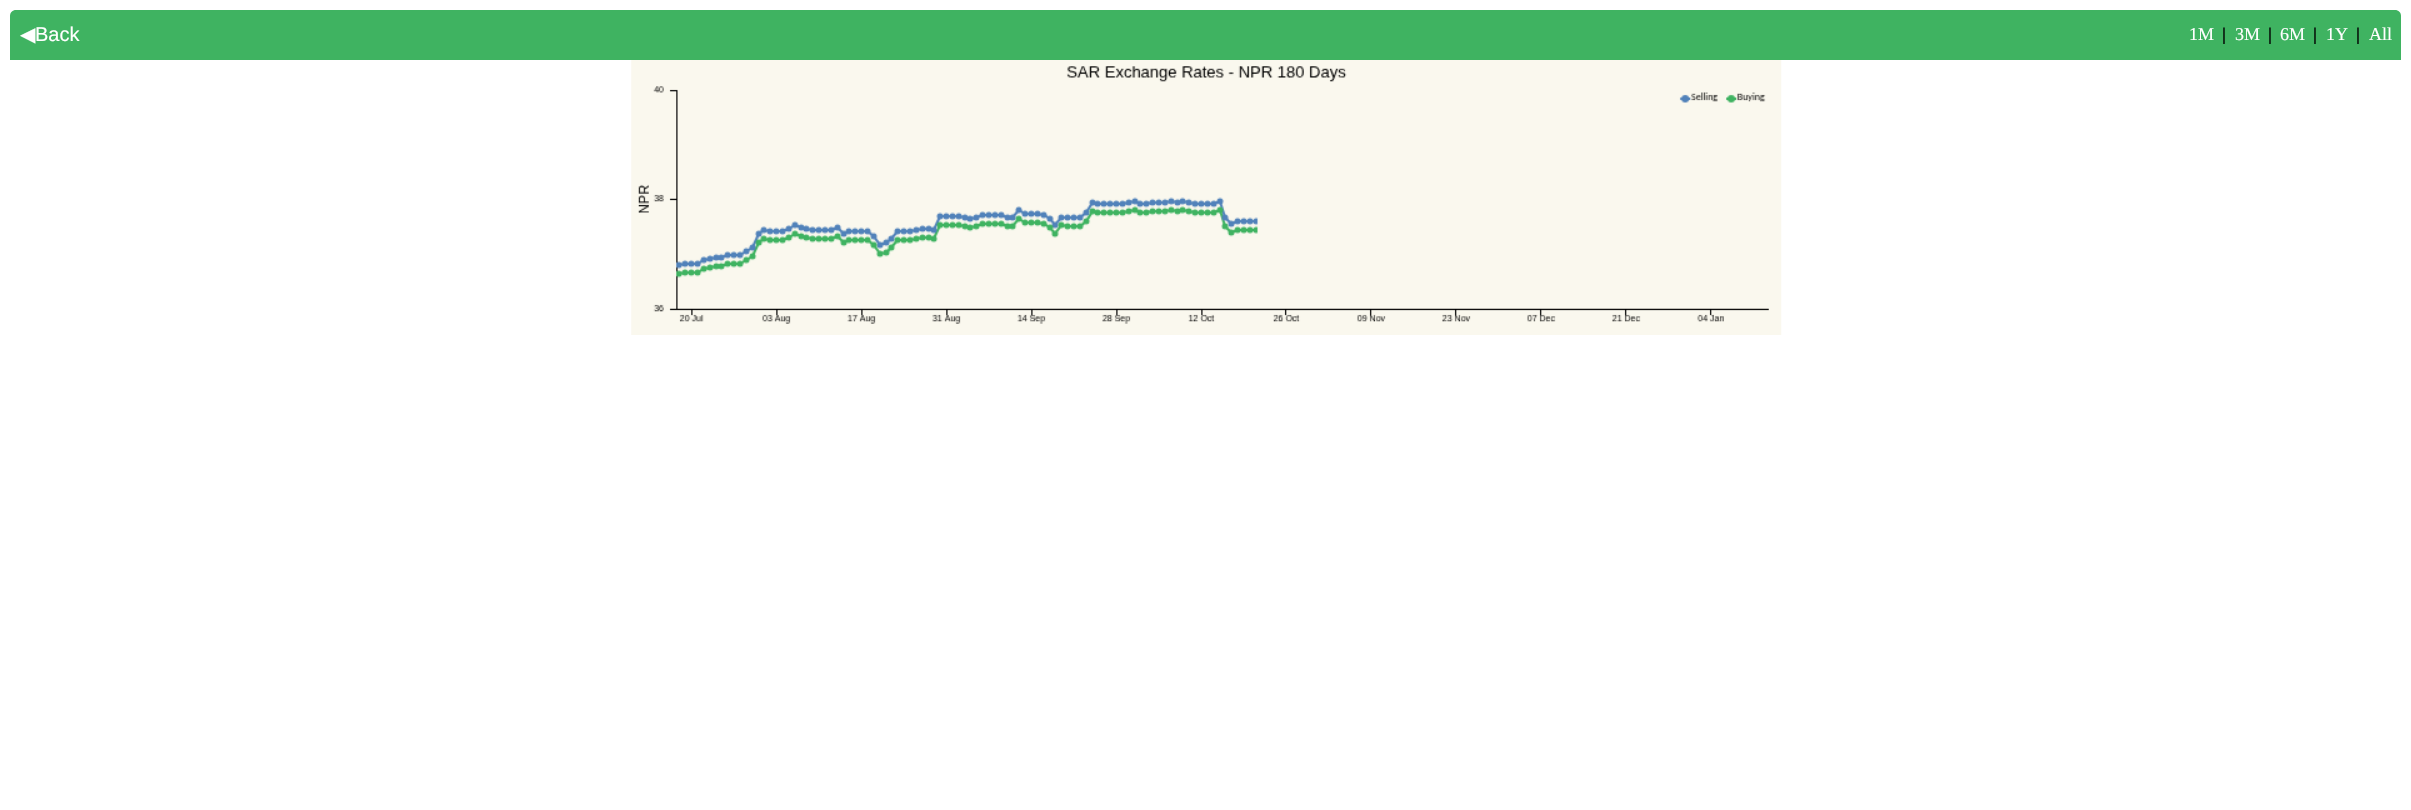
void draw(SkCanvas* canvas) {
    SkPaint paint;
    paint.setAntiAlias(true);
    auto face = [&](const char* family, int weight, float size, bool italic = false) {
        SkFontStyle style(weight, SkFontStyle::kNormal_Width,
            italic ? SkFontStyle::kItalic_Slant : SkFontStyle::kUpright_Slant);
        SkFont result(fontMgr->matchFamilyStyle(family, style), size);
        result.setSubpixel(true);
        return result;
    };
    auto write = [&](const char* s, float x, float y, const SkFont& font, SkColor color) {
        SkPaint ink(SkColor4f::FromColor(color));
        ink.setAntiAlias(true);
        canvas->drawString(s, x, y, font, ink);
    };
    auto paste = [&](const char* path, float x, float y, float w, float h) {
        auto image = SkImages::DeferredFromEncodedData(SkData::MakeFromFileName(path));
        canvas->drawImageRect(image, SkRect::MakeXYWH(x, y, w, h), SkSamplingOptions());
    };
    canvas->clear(SK_ColorWHITE);
    paint.setColor(SkColorSetRGB(63, 179, 97));
    canvas->drawPath(SkPathBuilder().moveTo(16, 10).lineTo(2395, 10).cubicTo(2398.5f, 10, 2401, 12.5f, 2401, 16).lineTo(2401, 60).lineTo(10, 60).lineTo(10, 16).cubicTo(10, 12.5f, 12.5f, 10, 16, 10).close().detach(), paint);
    auto kFont1 = face("DejaVu Sans", 400, 20);
    write("◀", 20, 41, kFont1, SK_ColorWHITE);
    auto kFont2 = face("Liberation Sans", 400, 20);
    write("Back", 35, 41, kFont2, SK_ColorWHITE);
    auto kFont3 = face("Liberation Serif", 400, 18);
    write("1M", 2189, 40, kFont3, SK_ColorWHITE);
    auto kFont4 = face("Liberation Serif", 700, 18);
    write("|", 2222, 40, kFont4, SK_ColorBLACK);
    write("3M", 2235, 40, kFont3, SK_ColorWHITE);
    write("|", 2268, 40, kFont4, SK_ColorBLACK);
    write("6M", 2280, 40, kFont3, SK_ColorWHITE);
    write("|", 2313, 40, kFont4, SK_ColorBLACK);
    write("1Y", 2326, 40, kFont3, SK_ColorWHITE);
    write("|", 2356, 40, kFont4, SK_ColorBLACK);
    write("All", 2369, 40, kFont3, SK_ColorWHITE);
    paste("pic1.png", 631, 60, 1151, 275);
}
